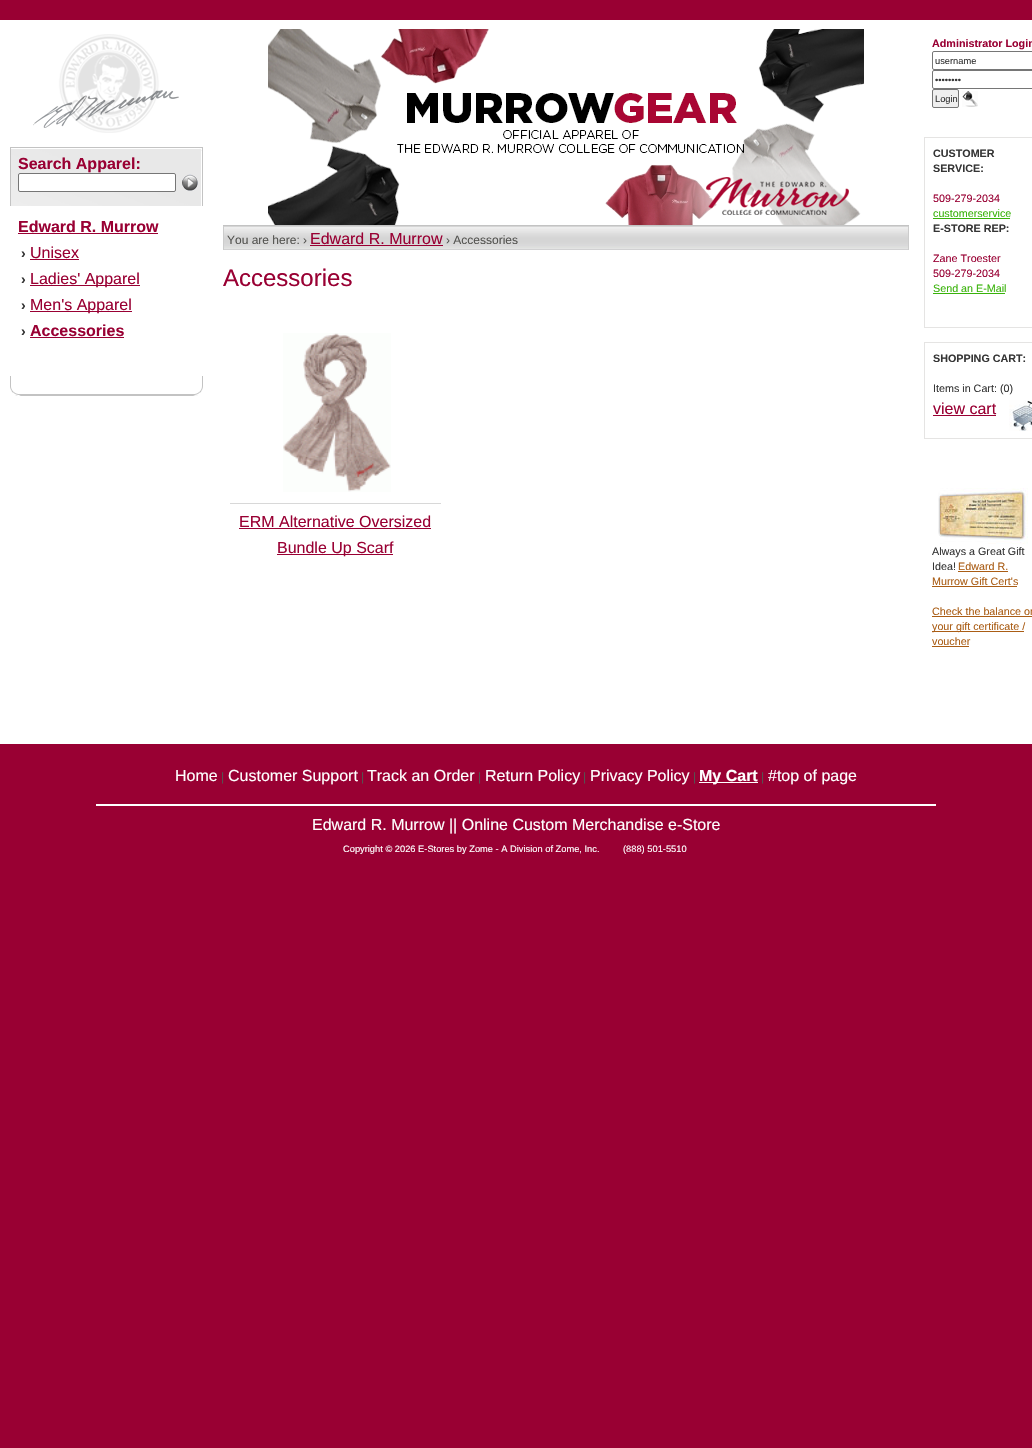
void draw(SkCanvas* canvas) {
    SkPaint paint;
    paint.setAntiAlias(true);
    auto face = [&](const char* family, int weight, float size, bool italic = false) {
        SkFontStyle style(weight, SkFontStyle::kNormal_Width,
            italic ? SkFontStyle::kItalic_Slant : SkFontStyle::kUpright_Slant);
        SkFont result(fontMgr->matchFamilyStyle(family, style), size);
        result.setSubpixel(true);
        return result;
    };
    auto write = [&](const char* s, float x, float y, const SkFont& font, SkColor color) {
        SkPaint ink(SkColor4f::FromColor(color));
        ink.setAntiAlias(true);
        canvas->drawString(s, x, y, font, ink);
    };
    auto block = [&](float x, float y, float w, float h, SkColor color) {
        SkPaint ink(SkColor4f::FromColor(color));
        ink.setAntiAlias(true);
        canvas->drawRect(SkRect::MakeXYWH(x, y, w, h), ink);
    };
    auto paste = [&](const char* path, float x, float y, float w, float h) {
        auto image = SkImages::DeferredFromEncodedData(SkData::MakeFromFileName(path));
        canvas->drawImageRect(image, SkRect::MakeXYWH(x, y, w, h), SkSamplingOptions());
    };
    canvas->clear(SkColorSetRGB(153, 0, 51));
    block(2, 21, 1030, 721, SK_ColorWHITE);
    block(0, 20, 1032, 1, SK_ColorWHITE);
    block(0, 742, 1032, 2, SK_ColorWHITE);
    block(0, 20, 2, 724, SK_ColorWHITE);
    paste("pic1.png", 33, 34, 146, 99);
    paste("pic2.png", 10, 147, 193, 59);
    auto kFont1 = face("Liberation Sans", 700, 16);
    write("Search Apparel:", 18, 169, kFont1, SkColorSetRGB(153, 0, 51));
    paint.setColor(SK_ColorWHITE);
    canvas->drawRoundRect(SkRect::MakeXYWH(18.5f, 173.5f, 157, 18), 1.5f, 1.5f, paint);
    paint.setStyle(SkPaint::kStroke_Style);
    paint.setStrokeWidth(1);
    paint.setColor(SkColorSetRGB(118, 118, 118));
    canvas->drawRoundRect(SkRect::MakeXYWH(18.5f, 173.5f, 157, 18), 1.5f, 1.5f, paint);
    paste("pic3.png", 182, 174, 16, 17);
    write("Edward R. Murrow", 18, 232, kFont1, SkColorSetRGB(153, 0, 51));
    block(18, 233, 140, 1, SkColorSetRGB(153, 0, 51));
    auto kFont2 = face("Liberation Sans", 700, 14);
    write("›", 21, 258, kFont2, SkColorSetRGB(53, 53, 53));
    auto kFont3 = face("Liberation Sans", 400, 16);
    write("Unisex", 30, 258, kFont3, SkColorSetRGB(153, 0, 51));
    block(30, 259, 49, 1, SkColorSetRGB(153, 0, 51));
    write("›", 21, 284, kFont2, SkColorSetRGB(53, 53, 53));
    block(30, 285, 110, 1, SkColorSetRGB(153, 0, 51));
    write("Ladies' Apparel", 30, 284, kFont3, SkColorSetRGB(153, 0, 51));
    write("›", 21, 310, kFont2, SkColorSetRGB(53, 53, 53));
    block(30, 311, 102, 1, SkColorSetRGB(153, 0, 51));
    write("Men's Apparel", 30, 310, kFont3, SkColorSetRGB(153, 0, 51));
    write("›", 21, 336, kFont2, SkColorSetRGB(53, 53, 53));
    write("Accessories", 30, 336, kFont1, SkColorSetRGB(153, 0, 51));
    block(30, 337, 94, 1, SkColorSetRGB(153, 0, 51));
    paste("pic4.png", 10, 376, 193, 20);
    block(223, 225, 686, 1, SkColorSetRGB(195, 195, 195));
    paste("pic5.png", 268, 29, 596, 196);
    paste("pic6.png", 224, 226, 684, 24);
    block(908, 226, 1, 24, SkColorSetRGB(204, 204, 204));
    block(223, 226, 1, 24, SkColorSetRGB(204, 204, 204));
    auto kFont4 = face("Liberation Sans", 400, 12);
    write("You are here: ›", 227, 244, kFont4, SkColorSetRGB(84, 84, 81));
    write("Edward R. Murrow", 310, 244, kFont3, SkColorSetRGB(153, 0, 51));
    block(310, 245, 133, 1, SkColorSetRGB(153, 0, 51));
    write("› Accessories", 446, 244, kFont4, SkColorSetRGB(84, 84, 81));
    auto kFont5 = face("Liberation Sans", 400, 24);
    write("Accessories", 223, 286, kFont5, SkColorSetRGB(153, 0, 51));
    paste("pic7.png", 283, 333, 108, 159);
    block(230, 503, 211, 1, SkColorSetRGB(216, 216, 216));
    write("ERM Alternative Oversized", 239, 527, kFont3, SkColorSetRGB(153, 0, 51));
    block(239, 528, 192, 1, SkColorSetRGB(153, 0, 51));
    block(277, 554, 116, 1, SkColorSetRGB(153, 0, 51));
    write("Bundle Up Scarf", 277, 553, kFont3, SkColorSetRGB(153, 0, 51));
    auto kFont6 = face("Liberation Sans", 700, 10.75f);
    write("Administrator Login", 932, 47, kFont6, SkColorSetRGB(153, 0, 51));
    canvas->drawRoundRect(SkRect::MakeXYWH(932.5f, 51.5f, 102, 18), 1.5f, 1.5f, paint);
    auto kFont7 = face("Liberation Sans", 400, 9.3f);
    write("username", 935, 64, kFont7, SkColorSetRGB(53, 53, 53));
    canvas->drawRoundRect(SkRect::MakeXYWH(932.5f, 70.5f, 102, 18), 1.5f, 1.5f, paint);
    write("••••••••", 935, 83, kFont7, SkColorSetRGB(53, 53, 53));
    paint.setStyle(SkPaint::kFill_Style);
    paint.setColor(SkColorSetRGB(239, 239, 239));
    canvas->drawRoundRect(SkRect::MakeXYWH(932.5f, 89.5f, 26, 18), 1.5f, 1.5f, paint);
    paint.setStyle(SkPaint::kStroke_Style);
    paint.setColor(SkColorSetRGB(118, 118, 118));
    canvas->drawRoundRect(SkRect::MakeXYWH(932.5f, 89.5f, 26, 18), 1.5f, 1.5f, paint);
    write("Login", 935, 102, kFont7, SkColorSetRGB(53, 53, 53));
    paste("pic8.png", 962, 91, 16, 16);
    paint.setColor(SkColorSetRGB(229, 228, 227));
    canvas->drawRect(SkRect::MakeXYWH(924.5f, 137.5f, 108, 190), paint);
    write("CUSTOMER", 933, 157, kFont6, SkColorSetRGB(53, 53, 53));
    write("SERVICE:", 933, 172, kFont6, SkColorSetRGB(53, 53, 53));
    auto kFont8 = face("Liberation Sans", 400, 10.75f);
    write("509-279-2034", 933, 202, kFont8, SkColorSetRGB(153, 0, 51));
    write("customerservice", 933, 217, kFont8, SkColorSetRGB(57, 179, 10));
    block(933, 218, 77, 1, SkColorSetRGB(57, 179, 10));
    write("E-STORE REP:", 933, 232, kFont6, SkColorSetRGB(53, 53, 53));
    write("Zane Troester", 933, 262, kFont8, SkColorSetRGB(153, 0, 51));
    write("509-279-2034", 933, 277, kFont8, SkColorSetRGB(153, 0, 51));
    write("Send an E-Mail", 933, 292, kFont8, SkColorSetRGB(57, 179, 10));
    block(933, 293, 72, 1, SkColorSetRGB(57, 179, 10));
    canvas->drawRect(SkRect::MakeXYWH(924.5f, 342.5f, 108, 96), paint);
    write("SHOPPING CART:", 933, 362, kFont6, SkColorSetRGB(53, 53, 53));
    write("Items in Cart: (0)", 933, 392, kFont8, SkColorSetRGB(53, 53, 53));
    write("view cart", 933, 414, kFont3, SkColorSetRGB(153, 0, 51));
    block(933, 415, 63, 1, SkColorSetRGB(153, 0, 51));
    paste("pic9.png", 1009, 400, 23, 31);
    paste("pic10.png", 938, 488, 90, 56);
    write("Always a Great Gift", 932, 555, kFont8, SkColorSetRGB(53, 53, 53));
    write("Idea!", 932, 570, kFont8, SkColorSetRGB(53, 53, 53));
    write("Edward R.", 958, 570, kFont8, SkColorSetRGB(170, 93, 21));
    block(958, 571, 50, 1, SkColorSetRGB(170, 93, 21));
    write("Murrow Gift Cert's", 932, 585, kFont8, SkColorSetRGB(170, 93, 21));
    block(932, 586, 85, 1, SkColorSetRGB(170, 93, 21));
    write("Check the balance on", 932, 615, kFont8, SkColorSetRGB(170, 93, 21));
    block(932, 616, 100, 1, SkColorSetRGB(170, 93, 21));
    block(932, 631, 92, 1, SkColorSetRGB(170, 93, 21));
    write("your gift certificate /", 932, 630, kFont8, SkColorSetRGB(170, 93, 21));
    write("voucher", 932, 645, kFont8, SkColorSetRGB(170, 93, 21));
    block(932, 646, 37, 1, SkColorSetRGB(170, 93, 21));
    block(96, 804, 840, 2, SK_ColorWHITE);
    write("Home", 175, 781, kFont3, SK_ColorWHITE);
    write("|", 221, 781, kFont4, SkColorSetRGB(84, 84, 81));
    write("Customer Support", 228, 781, kFont3, SK_ColorWHITE);
    write("|", 361, 781, kFont4, SkColorSetRGB(84, 84, 81));
    write("Track an Order", 367, 781, kFont3, SK_ColorWHITE);
    write("|", 478, 781, kFont4, SkColorSetRGB(84, 84, 81));
    write("Return Policy", 485, 781, kFont3, SK_ColorWHITE);
    write("|", 583, 781, kFont4, SkColorSetRGB(84, 84, 81));
    write("Privacy Policy", 590, 781, kFont3, SK_ColorWHITE);
    write("|", 693, 781, kFont4, SkColorSetRGB(84, 84, 81));
    block(699, 782, 59, 1, SK_ColorWHITE);
    write("My Cart", 699, 781, kFont1, SK_ColorWHITE);
    write("|", 761, 781, kFont4, SkColorSetRGB(84, 84, 81));
    write("#top of page", 768, 781, kFont3, SK_ColorWHITE);
    write("Edward R. Murrow || Online Custom Merchandise e-Store", 312, 830, kFont3, SK_ColorWHITE);
    write("Copyright © 2026 E-Stores by Zome - A Division of Zome, Inc.", 343, 852, kFont7, SK_ColorWHITE);
    write("(888) 501-5510", 623, 852, kFont7, SK_ColorWHITE);
}
